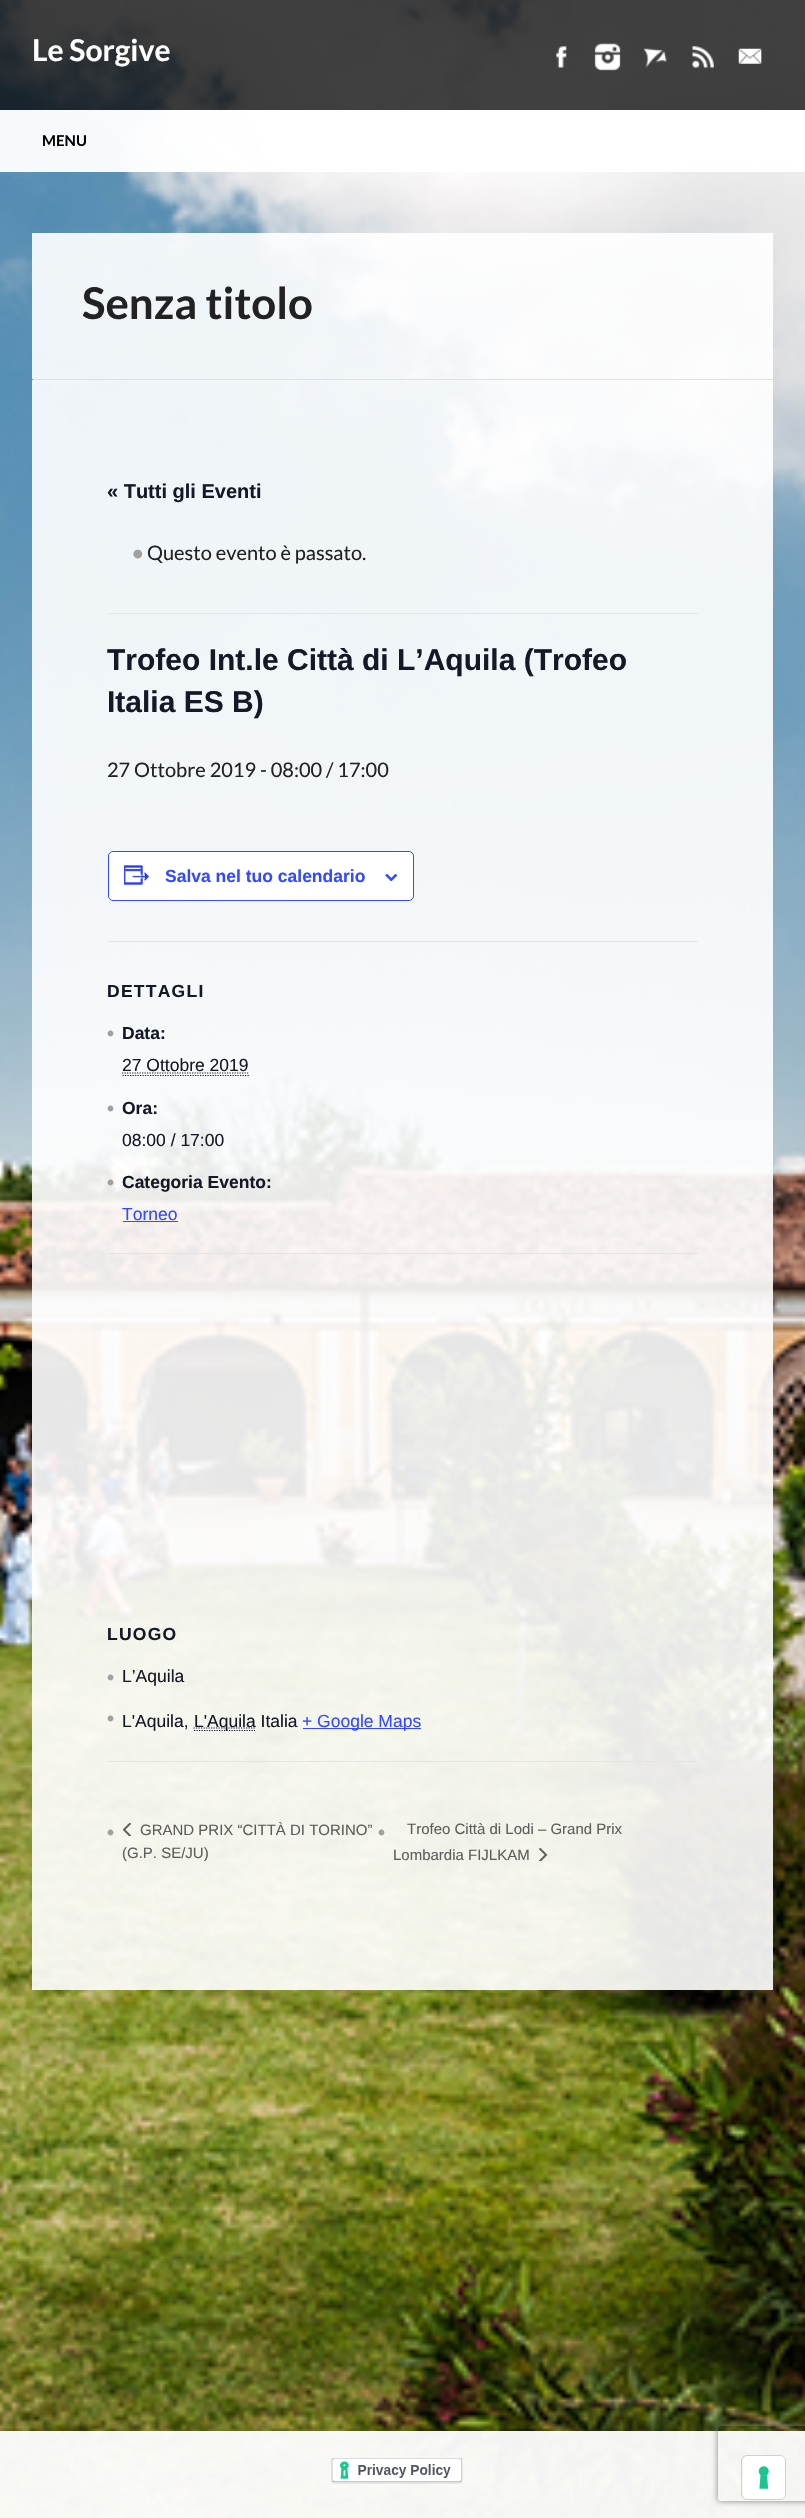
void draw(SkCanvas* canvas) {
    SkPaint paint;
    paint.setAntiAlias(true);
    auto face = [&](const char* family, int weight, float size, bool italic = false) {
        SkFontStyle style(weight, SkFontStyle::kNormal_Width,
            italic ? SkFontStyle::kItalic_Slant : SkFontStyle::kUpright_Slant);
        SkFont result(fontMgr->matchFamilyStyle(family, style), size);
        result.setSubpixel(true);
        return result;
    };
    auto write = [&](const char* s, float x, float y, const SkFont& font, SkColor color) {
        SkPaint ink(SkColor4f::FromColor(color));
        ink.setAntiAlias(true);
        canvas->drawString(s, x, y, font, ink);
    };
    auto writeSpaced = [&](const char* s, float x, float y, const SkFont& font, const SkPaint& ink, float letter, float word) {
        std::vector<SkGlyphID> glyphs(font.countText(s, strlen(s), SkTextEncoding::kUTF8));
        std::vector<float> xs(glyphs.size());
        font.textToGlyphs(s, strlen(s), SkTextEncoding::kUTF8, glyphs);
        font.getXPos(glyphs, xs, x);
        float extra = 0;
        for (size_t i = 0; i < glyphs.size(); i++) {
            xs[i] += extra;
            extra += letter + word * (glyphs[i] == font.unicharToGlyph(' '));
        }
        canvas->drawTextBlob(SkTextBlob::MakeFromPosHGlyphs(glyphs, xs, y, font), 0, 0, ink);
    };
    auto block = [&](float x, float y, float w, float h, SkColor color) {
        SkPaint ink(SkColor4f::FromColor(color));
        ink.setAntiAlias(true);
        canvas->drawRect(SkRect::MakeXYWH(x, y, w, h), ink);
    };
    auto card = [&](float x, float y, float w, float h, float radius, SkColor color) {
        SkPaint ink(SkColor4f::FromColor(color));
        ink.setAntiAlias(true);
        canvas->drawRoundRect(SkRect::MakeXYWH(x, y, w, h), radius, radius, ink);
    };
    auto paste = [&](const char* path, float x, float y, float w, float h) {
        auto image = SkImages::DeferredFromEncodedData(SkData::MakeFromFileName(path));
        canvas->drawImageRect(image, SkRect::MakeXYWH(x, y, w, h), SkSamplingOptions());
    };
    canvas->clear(SK_ColorWHITE);
    paste("pic1.png", 0, 0, 805, 2518);
    block(0, 0, 805, 110, SkColorSetARGB(191, 0, 0, 0));
    auto kFont1 = face("Lato", 700, 30);
    write("Le Sorgive", 32, 61, kFont1, SK_ColorWHITE);
    paste("pic2.png", 556, 46, 11, 22);
    paste("pic3.png", 594, 43, 27, 28);
    paste("pic4.png", 643, 48, 24, 20);
    paste("pic5.png", 692, 46, 22, 22);
    paste("pic6.png", 738, 48, 24, 16);
    block(0, 110, 805, 62, SkColorSetARGB(242, 255, 255, 255));
    auto kFont2 = face("Lato", 700, 15);
    write("MENU", 42, 146, kFont2, SK_ColorBLACK);
    block(32, 233, 741, 146, SkColorSetARGB(230, 255, 255, 255));
    auto kFont3 = face("Lato", 700, 43.75f);
    write("Senza titolo", 82, 319, kFont3, SkColorSetRGB(34, 34, 34));
    block(33, 379, 740, 1, SkColorSetRGB(224, 224, 224));
    block(32, 380, 741, 1610, SkColorSetARGB(230, 255, 255, 255));
    auto kFont4 = face("Liberation Sans", 700, 20);
    write("« Tutti gli Eventi", 107, 498, kFont4, SkColorSetRGB(20, 24, 39));
    block(108, 613, 590, 1, SkColorSetRGB(228, 228, 228));
    auto kFont5 = face("Lato", 700, 20);
    write("•", 132, 560, kFont5, SkColorSetRGB(160, 160, 160));
    auto kFont6 = face("Lato", 400, 20);
    write("Questo evento è passato.", 147, 560, kFont6, SkColorSetRGB(34, 34, 34));
    auto kFont7 = face("Liberation Sans", 700, 30);
    write("Trofeo Int.le Città di L’Aquila (Trofeo", 107, 670, kFont7, SkColorSetRGB(20, 24, 39));
    write("Italia ES B)", 107, 712, kFont7, SkColorSetRGB(20, 24, 39));
    write("27 Ottobre 2019 - 08:00 / 17:00", 107, 777, kFont6, SkColorSetRGB(34, 34, 34));
    paint.setColor(SK_ColorWHITE);
    canvas->drawRoundRect(SkRect::MakeXYWH(108.5f, 851.5f, 305, 49), 4.5f, 4.5f, paint);
    paint.setStyle(SkPaint::kStroke_Style);
    paint.setStrokeWidth(1);
    paint.setColor(SkColorSetRGB(51, 74, 255));
    canvas->drawRoundRect(SkRect::MakeXYWH(108.5f, 851.5f, 305, 49), 4.5f, 4.5f, paint);
    paste("pic7.png", 124, 865, 25, 20);
    auto kFont8 = face("Liberation Sans", 700, 17.5f);
    write("Salva nel tuo calendario", 165, 882, kFont8, SkColorSetRGB(51, 74, 255));
    paste("pic8.png", 385, 874, 13, 7);
    block(108, 941, 590, 1, SkColorSetRGB(228, 228, 228));
    paint.setStyle(SkPaint::kFill_Style);
    paint.setColor(SkColorSetRGB(20, 24, 39));
    writeSpaced("DETTAGLI", 107, 997, kFont8, paint, 1.25f, 0);
    write("•", 107, 1040, kFont4, SkColorSetRGB(160, 160, 160));
    write("Data:", 122, 1039, kFont8, SkColorSetRGB(20, 24, 39));
    auto kFont9 = face("Liberation Sans", 400, 17.5f);
    write("27 Ottobre 2019", 122, 1071, kFont9, SkColorSetRGB(20, 24, 39));
    paint.setStyle(SkPaint::kStroke_Style);
    paint.setStrokeWidth(1.2f);
    paint.setPathEffect(SkDashPathEffect::Make({{1.25f, 1.25f}}, 0));
    canvas->drawPath(SkPathBuilder().moveTo(122.5f, 1075.5f).lineTo(249, 1075.5f).detach(), paint);
    paint.setPathEffect(nullptr);
    paint.setPathEffect(SkDashPathEffect::Make({{1.25f, 1.25f}}, 0));
    canvas->drawPath(SkPathBuilder().moveTo(122, 1073).lineTo(248.5f, 1073).detach(), paint);
    paint.setPathEffect(nullptr);
    write("•", 107, 1115, kFont4, SkColorSetRGB(160, 160, 160));
    write("Ora:", 122, 1114, kFont8, SkColorSetRGB(20, 24, 39));
    write("08:00 / 17:00", 122, 1146, kFont9, SkColorSetRGB(20, 24, 39));
    write("•", 107, 1189, kFont4, SkColorSetRGB(160, 160, 160));
    write("Categoria Evento:", 122, 1188, kFont8, SkColorSetRGB(20, 24, 39));
    write("Torneo", 122, 1220, kFont9, SkColorSetRGB(51, 74, 255));
    block(123, 1221, 55, 1, SkColorSetRGB(51, 74, 255));
    block(108, 1253, 590, 1, SkColorSetRGB(228, 228, 228));
    paint.setStyle(SkPaint::kFill_Style);
    writeSpaced("LUOGO", 107, 1640, kFont8, paint, 1.25f, 0);
    write("•", 107, 1684, kFont4, SkColorSetRGB(160, 160, 160));
    write("L’Aquila", 122, 1682, kFont9, SkColorSetRGB(20, 24, 39));
    write("•", 107, 1725, kFont4, SkColorSetRGB(160, 160, 160));
    write("L'Aquila,", 122, 1727, kFont9, SkColorSetRGB(20, 24, 39));
    paint.setStyle(SkPaint::kStroke_Style);
    paint.setPathEffect(SkDashPathEffect::Make({{1.25f, 1.25f}}, 0));
    canvas->drawPath(SkPathBuilder().moveTo(194, 1730.5f).lineTo(255, 1730.5f).moveTo(193.5f, 1728).lineTo(255.5f, 1728).detach(), paint);
    paint.setPathEffect(nullptr);
    write("L'Aquila Italia", 194, 1727, kFont9, SkColorSetRGB(20, 24, 39));
    block(303, 1728, 118, 1, SkColorSetRGB(51, 74, 255));
    write("+ Google Maps", 302, 1727, kFont9, SkColorSetRGB(51, 74, 255));
    block(108, 1761, 590, 1, SkColorSetRGB(228, 228, 228));
    write("•", 107, 1839, kFont4, SkColorSetRGB(160, 160, 160));
    paste("pic9.png", 123, 1823, 8, 13);
    auto kFont10 = face("Liberation Sans", 400, 15);
    write("GRAND PRIX “CITTÀ DI TORINO”", 140, 1835, kFont10, SkColorSetRGB(93, 93, 93));
    write("(G.P. SE/JU)", 122, 1858, kFont10, SkColorSetRGB(93, 93, 93));
    write("•", 378, 1839, kFont4, SkColorSetRGB(160, 160, 160));
    write("Trofeo Città di Lodi – Grand Prix", 407, 1834, kFont10, SkColorSetRGB(93, 93, 93));
    write("Lombardia FIJLKAM", 393, 1860, kFont10, SkColorSetRGB(93, 93, 93));
    paste("pic10.png", 539, 1848, 9, 13);
    block(0, 2431, 805, 87, SkColorSetARGB(242, 255, 255, 255));
    canvas->save();
    canvas->clipPath(SkPathBuilder(SkPathFillType::kEvenOdd).moveTo(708, 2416).lineTo(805, 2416).lineTo(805, 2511).lineTo(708, 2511).close().moveTo(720.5f, 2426).lineTo(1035.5f, 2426).cubicTo(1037, 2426, 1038, 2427, 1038, 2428.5f).lineTo(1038, 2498.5f).cubicTo(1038, 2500, 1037, 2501, 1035.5f, 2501).lineTo(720.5f, 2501).cubicTo(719, 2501, 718, 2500, 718, 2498.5f).lineTo(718, 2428.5f).cubicTo(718, 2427, 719, 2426, 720.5f, 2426).close().detach(), true);
    paint.setStyle(SkPaint::kFill_Style);
    paint.setColor(SkColorSetRGB(128, 128, 128));
    paint.setMaskFilter(SkMaskFilter::MakeBlur(kNormal_SkBlurStyle, 3));
    canvas->drawRoundRect(SkRect::MakeXYWH(718, 2426, 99, 75), 2.5f, 2.5f, paint);
    paint.setMaskFilter(nullptr);
    canvas->restore();
    paste("pic11.png", 331, 2458, 132, 26);
    paint.setStyle(SkPaint::kStroke_Style);
    paint.setStrokeWidth(1);
    paint.setColor(SkColorSetARGB(38, 0, 0, 0));
    canvas->drawRoundRect(SkRect::MakeXYWH(741.5f, 2455.5f, 44, 44), 5.5f, 5.5f, paint);
    card(743, 2456, 42, 43, 5, SK_ColorWHITE);
    paste("pic12.png", 758, 2466, 11, 23);
}
